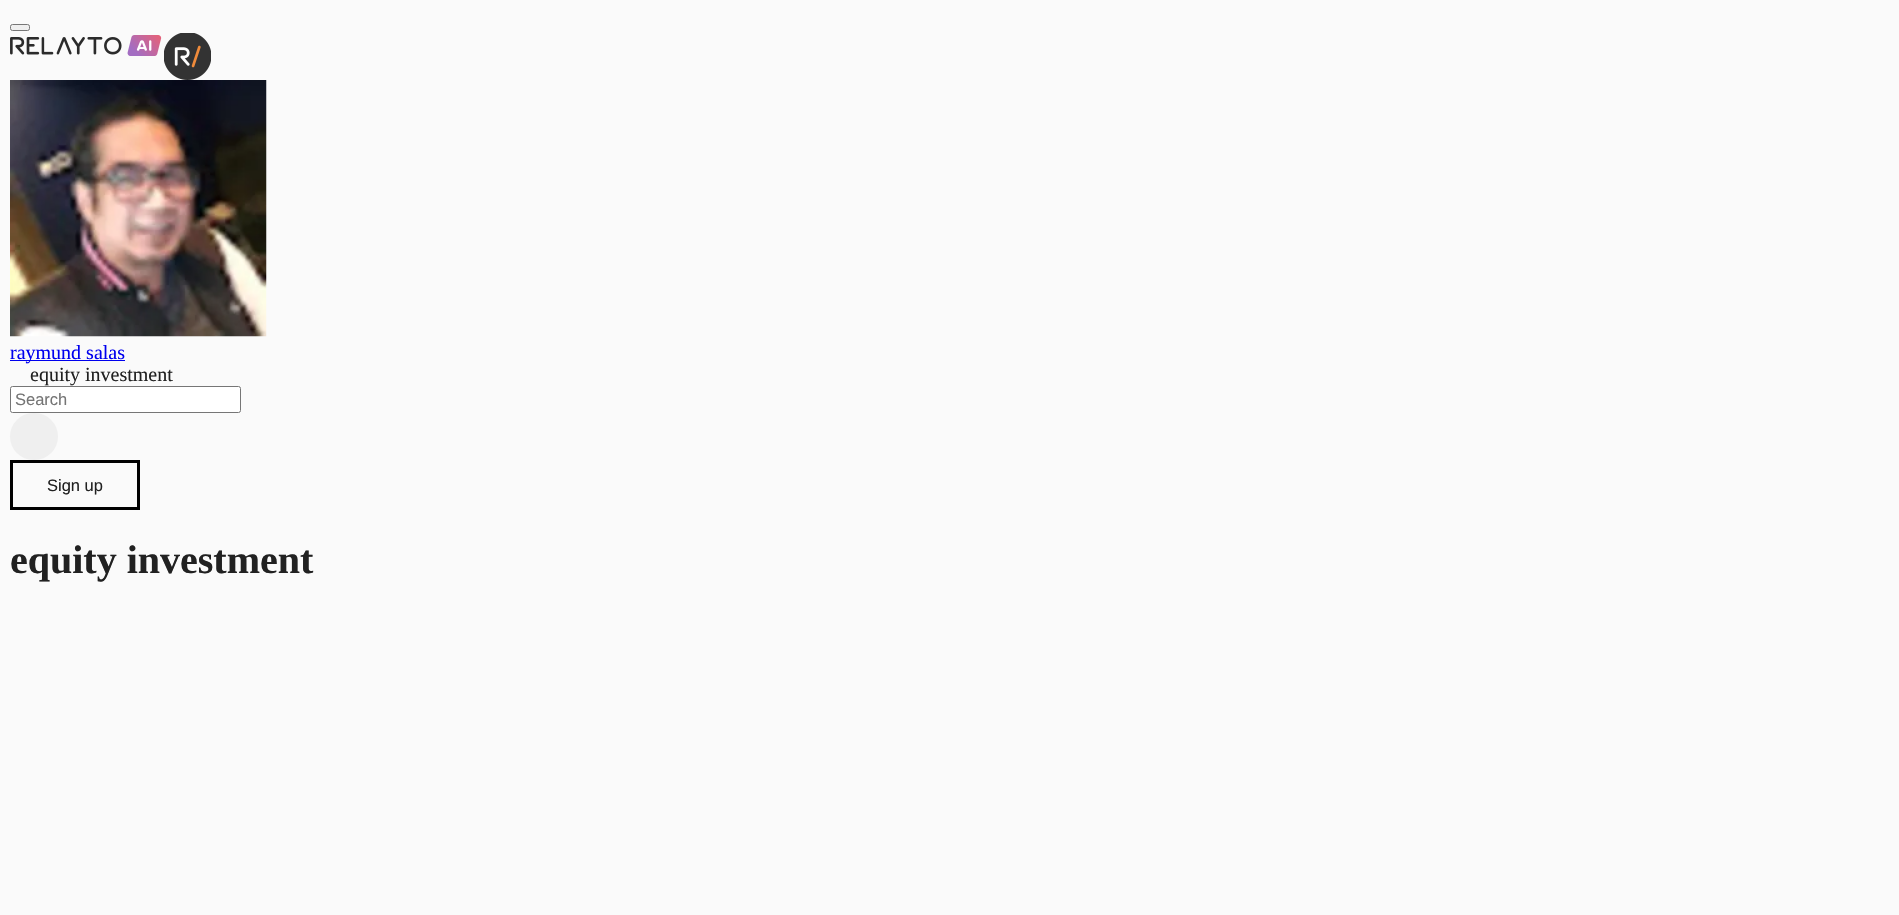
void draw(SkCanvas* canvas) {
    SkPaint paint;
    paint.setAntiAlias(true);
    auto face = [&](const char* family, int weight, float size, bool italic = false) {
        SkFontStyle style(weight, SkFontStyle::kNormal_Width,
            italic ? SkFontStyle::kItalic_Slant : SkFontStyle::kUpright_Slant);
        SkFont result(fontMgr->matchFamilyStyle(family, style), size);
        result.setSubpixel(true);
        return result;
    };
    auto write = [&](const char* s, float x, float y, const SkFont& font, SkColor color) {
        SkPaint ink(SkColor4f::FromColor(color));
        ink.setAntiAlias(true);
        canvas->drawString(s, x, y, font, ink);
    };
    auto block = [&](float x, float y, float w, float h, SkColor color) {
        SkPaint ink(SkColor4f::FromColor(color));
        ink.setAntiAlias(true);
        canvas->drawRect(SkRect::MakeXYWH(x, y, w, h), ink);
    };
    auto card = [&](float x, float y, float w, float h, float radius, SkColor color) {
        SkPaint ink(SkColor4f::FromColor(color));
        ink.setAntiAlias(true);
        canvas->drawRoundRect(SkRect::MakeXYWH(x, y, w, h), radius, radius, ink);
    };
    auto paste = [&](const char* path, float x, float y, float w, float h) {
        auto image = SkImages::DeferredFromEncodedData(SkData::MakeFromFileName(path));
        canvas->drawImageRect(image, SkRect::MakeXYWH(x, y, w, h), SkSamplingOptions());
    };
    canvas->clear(SkColorSetRGB(250, 250, 250));
    paint.setColor(SkColorSetRGB(239, 239, 239));
    canvas->drawRoundRect(SkRect::MakeXYWH(10.5f, 24.5f, 19, 6), 2, 2, paint);
    paint.setStyle(SkPaint::kStroke_Style);
    paint.setStrokeWidth(1);
    paint.setColor(SkColorSetRGB(118, 118, 118));
    canvas->drawRoundRect(SkRect::MakeXYWH(10.5f, 24.5f, 19, 6), 2, 2, paint);
    paste("pic1.png", 10, 35, 152, 21);
    paste("pic2.png", 164, 33, 47, 47);
    paste("pic3.png", 10, 80, 257, 257);
    block(10, 360, 115, 1, SkColorSetRGB(0, 0, 238));
    auto kFont1 = face("Liberation Serif", 400, 20);
    write("raymund salas", 10, 359, kFont1, SkColorSetRGB(0, 0, 238));
    write("equity investment", 30, 381, kFont1, SkColorSetRGB(33, 33, 33));
    paint.setStyle(SkPaint::kFill_Style);
    paint.setColor(SK_ColorWHITE);
    canvas->drawRoundRect(SkRect::MakeXYWH(10.5f, 386.5f, 230, 26), 2, 2, paint);
    paint.setStyle(SkPaint::kStroke_Style);
    paint.setColor(SkColorSetRGB(118, 118, 118));
    canvas->drawRoundRect(SkRect::MakeXYWH(10.5f, 386.5f, 230, 26), 2, 2, paint);
    auto kFont2 = face("Liberation Sans", 400, 16.5f);
    write("Search", 15, 405, kFont2, SkColorSetRGB(117, 117, 117));
    card(10, 413, 48, 47, 23.5f, SkColorSetRGB(239, 239, 239));
    paint.setStrokeWidth(3);
    paint.setColor(SK_ColorBLACK);
    canvas->drawRect(SkRect::MakeXYWH(11.5f, 461.5f, 127, 47), paint);
    write("Sign up", 47, 491, kFont2, SkColorSetRGB(33, 33, 33));
    auto kFont3 = face("Liberation Serif", 700, 40);
    write("equity investment", 10, 573, kFont3, SkColorSetRGB(33, 33, 33));
}
